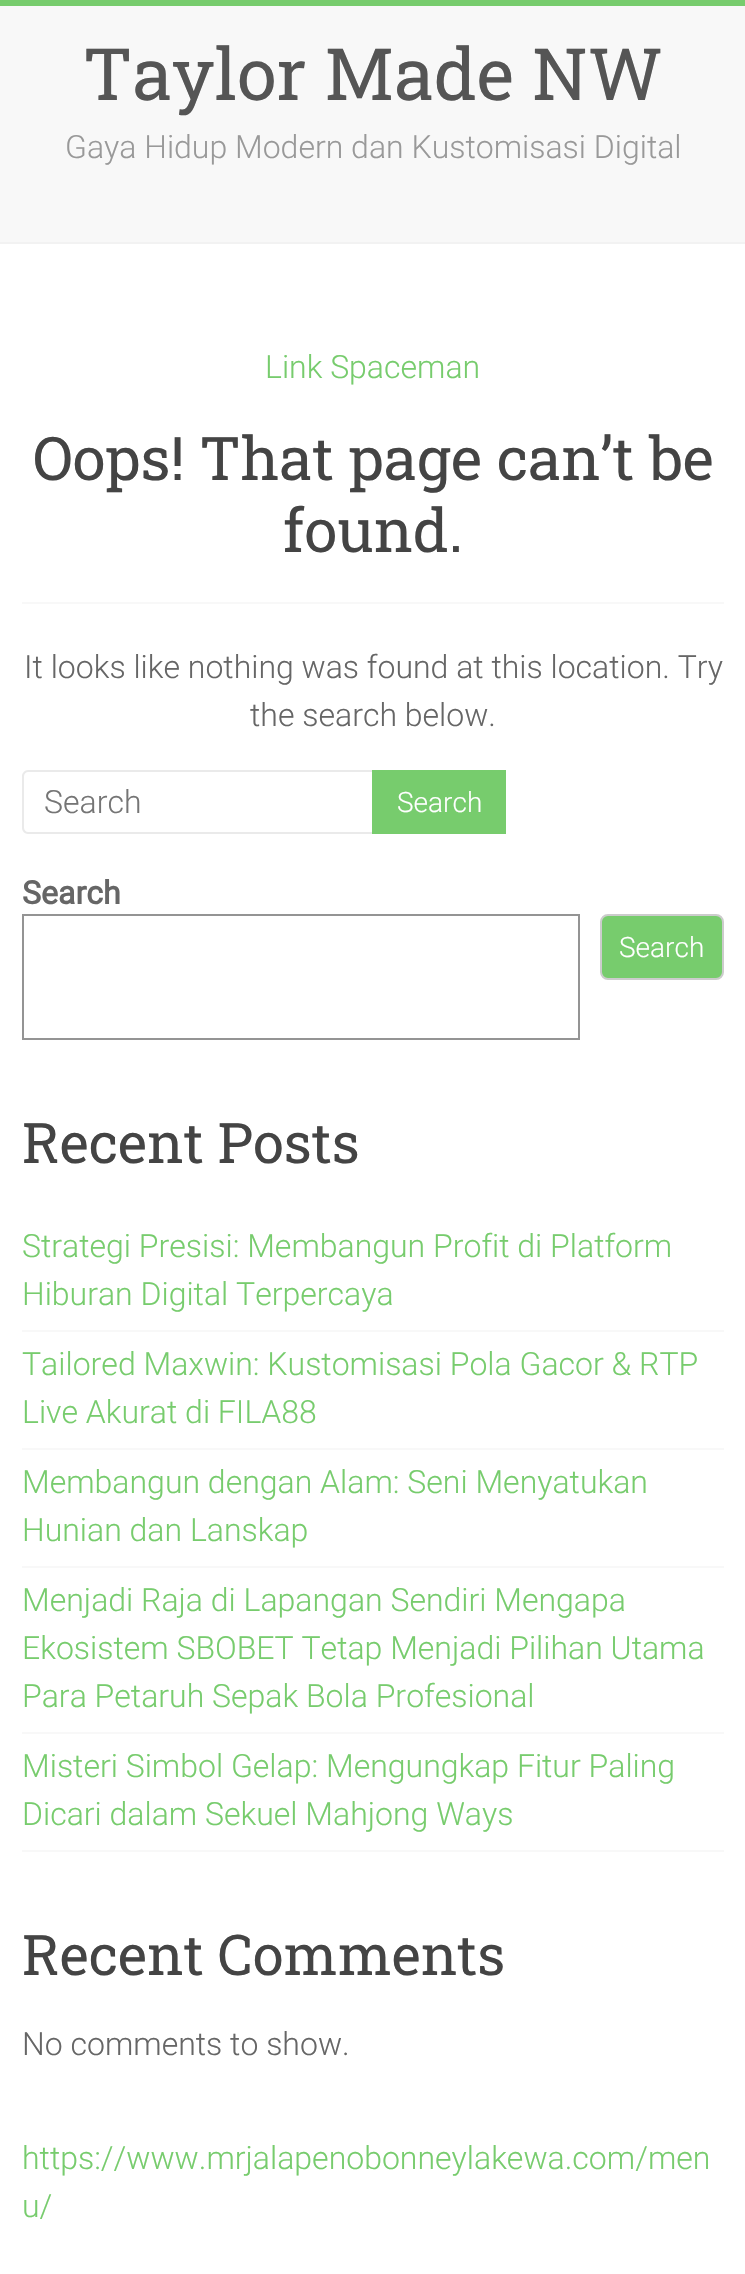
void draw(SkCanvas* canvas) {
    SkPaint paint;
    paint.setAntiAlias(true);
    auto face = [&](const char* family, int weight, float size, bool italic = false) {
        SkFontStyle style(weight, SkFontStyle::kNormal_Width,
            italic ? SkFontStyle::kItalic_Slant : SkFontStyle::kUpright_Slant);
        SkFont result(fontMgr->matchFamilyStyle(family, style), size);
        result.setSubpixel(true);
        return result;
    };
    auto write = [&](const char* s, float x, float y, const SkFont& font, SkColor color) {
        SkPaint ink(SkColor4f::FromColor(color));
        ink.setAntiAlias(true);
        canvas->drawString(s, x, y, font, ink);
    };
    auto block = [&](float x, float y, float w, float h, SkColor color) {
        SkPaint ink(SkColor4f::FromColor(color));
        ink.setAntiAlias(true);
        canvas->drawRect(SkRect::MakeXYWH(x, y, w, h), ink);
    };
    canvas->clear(SK_ColorWHITE);
    block(0, 0, 745, 6, SkColorSetRGB(119, 204, 109));
    block(0, 6, 745, 236, SkColorSetRGB(248, 248, 248));
    block(0, 242, 745, 2, SkColorSetRGB(242, 242, 242));
    auto kFont1 = face("Roboto Slab", 400, 72);
    write("Taylor Made NW", 83, 100, kFont1, SkColorSetRGB(85, 85, 85));
    auto kFont2 = face("Roboto", 300, 32);
    write("Gaya Hidup Modern dan Kustomisasi Digital", 65, 158, kFont2, SkColorSetRGB(153, 153, 153));
    write("Link Spaceman", 265, 378, kFont2, SkColorSetRGB(119, 204, 109));
    block(22, 602, 702, 2, SkColorSetRGB(248, 248, 248));
    auto kFont3 = face("Roboto Slab", 400, 60);
    write("Oops! That page can’t be", 33, 480, kFont3, SkColorSetRGB(68, 68, 68));
    write("found.", 283, 552, kFont3, SkColorSetRGB(68, 68, 68));
    write("It looks like nothing was found at this location. Try", 24, 678, kFont2, SkColorSetRGB(102, 102, 102));
    write("the search below.", 250, 726, kFont2, SkColorSetRGB(102, 102, 102));
    paint.setColor(SkColorSetRGB(234, 234, 234));
    canvas->drawPath(SkPathBuilder(SkPathFillType::kEvenOdd).moveTo(28, 770).lineTo(372, 770).lineTo(372, 834).lineTo(28, 834).cubicTo(25, 834, 22, 831, 22, 828).lineTo(22, 776).cubicTo(22, 773, 25, 770, 28, 770).close().moveTo(28, 772).lineTo(372, 772).lineTo(372, 832).lineTo(28, 832).cubicTo(26, 832, 24, 830, 24, 828).lineTo(24, 776).cubicTo(24, 774, 26, 772, 28, 772).close().detach(), paint);
    write("Search", 44, 813, kFont2, SkColorSetRGB(117, 117, 117));
    block(372, 770, 134, 64, SkColorSetRGB(119, 204, 109));
    auto kFont4 = face("Roboto", 300, 28);
    write("Search", 397, 812, kFont4, SK_ColorWHITE);
    auto kFont5 = face("Roboto", 700, 32);
    write("Search", 22, 904, kFont5, SkColorSetRGB(102, 102, 102));
    paint.setStyle(SkPaint::kStroke_Style);
    paint.setStrokeWidth(2);
    paint.setColor(SkColorSetRGB(148, 148, 148));
    canvas->drawRect(SkRect::MakeXYWH(23, 915, 556, 124), paint);
    paint.setStyle(SkPaint::kFill_Style);
    paint.setColor(SkColorSetRGB(119, 204, 109));
    canvas->drawRoundRect(SkRect::MakeXYWH(601, 915, 122, 64), 7, 7, paint);
    paint.setStyle(SkPaint::kStroke_Style);
    paint.setColor(SkColorSetRGB(204, 204, 204));
    canvas->drawRoundRect(SkRect::MakeXYWH(601, 915, 122, 64), 7, 7, paint);
    write("Search", 619, 957, kFont4, SK_ColorWHITE);
    auto kFont6 = face("Roboto Slab", 400, 56);
    write("Recent Posts", 22, 1163, kFont6, SkColorSetRGB(68, 68, 68));
    block(22, 1330, 702, 2, SkColorSetRGB(248, 248, 248));
    write("Strategi Presisi: Membangun Profit di Platform", 22, 1257, kFont2, SkColorSetRGB(119, 204, 109));
    write("Hiburan Digital Terpercaya", 22, 1305, kFont2, SkColorSetRGB(119, 204, 109));
    block(22, 1448, 702, 2, SkColorSetRGB(248, 248, 248));
    write("Tailored Maxwin: Kustomisasi Pola Gacor & RTP", 22, 1375, kFont2, SkColorSetRGB(119, 204, 109));
    write("Live Akurat di FILA88", 22, 1423, kFont2, SkColorSetRGB(119, 204, 109));
    block(22, 1566, 702, 2, SkColorSetRGB(248, 248, 248));
    write("Membangun dengan Alam: Seni Menyatukan", 22, 1493, kFont2, SkColorSetRGB(119, 204, 109));
    write("Hunian dan Lanskap", 22, 1541, kFont2, SkColorSetRGB(119, 204, 109));
    block(22, 1732, 702, 2, SkColorSetRGB(248, 248, 248));
    write("Menjadi Raja di Lapangan Sendiri Mengapa", 22, 1611, kFont2, SkColorSetRGB(119, 204, 109));
    write("Ekosistem SBOBET Tetap Menjadi Pilihan Utama", 22, 1659, kFont2, SkColorSetRGB(119, 204, 109));
    write("Para Petaruh Sepak Bola Profesional", 22, 1707, kFont2, SkColorSetRGB(119, 204, 109));
    block(22, 1850, 702, 2, SkColorSetRGB(248, 248, 248));
    write("Misteri Simbol Gelap: Mengungkap Fitur Paling", 22, 1777, kFont2, SkColorSetRGB(119, 204, 109));
    write("Dicari dalam Sekuel Mahjong Ways", 22, 1825, kFont2, SkColorSetRGB(119, 204, 109));
    write("Recent Comments", 22, 1975, kFont6, SkColorSetRGB(68, 68, 68));
    write("No comments to show.", 22, 2055, kFont2, SkColorSetRGB(102, 102, 102));
    write("https://www.mrjalapenobonneylakewa.com/men", 22, 2169, kFont2, SkColorSetRGB(119, 204, 109));
    write("u/", 22, 2217, kFont2, SkColorSetRGB(119, 204, 109));
}
